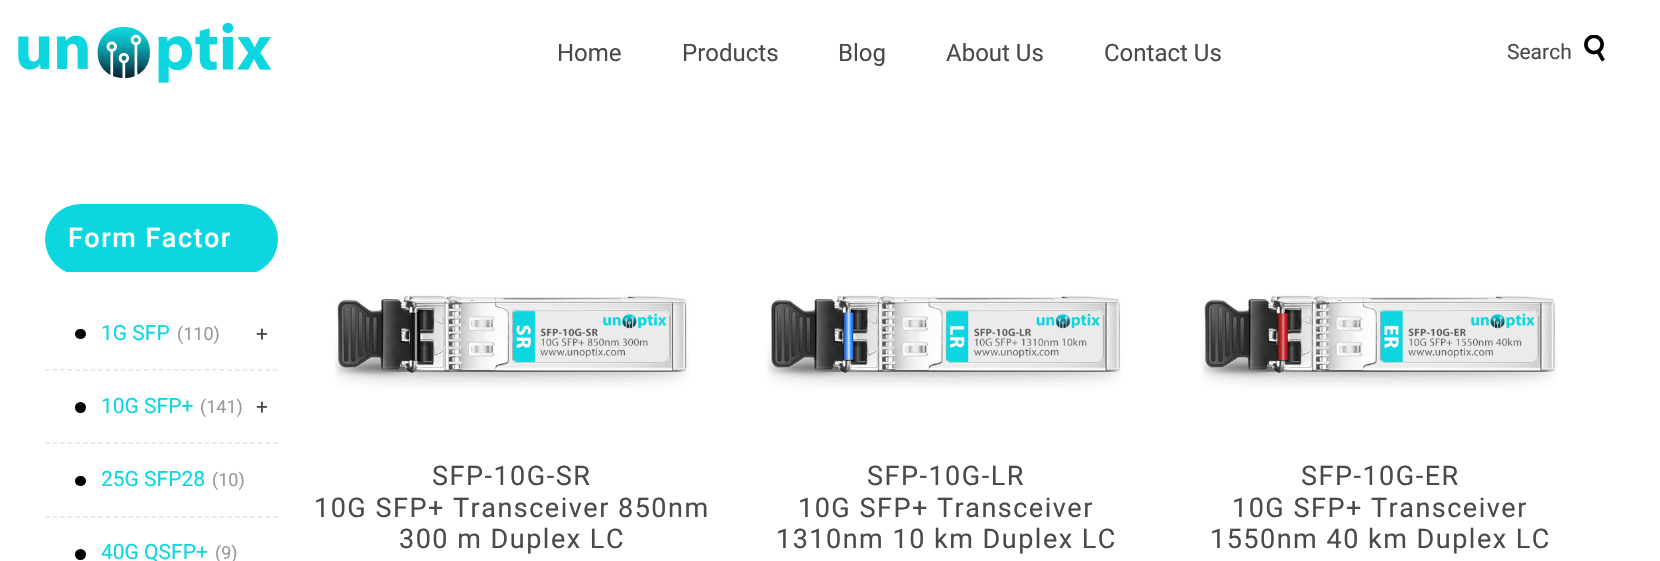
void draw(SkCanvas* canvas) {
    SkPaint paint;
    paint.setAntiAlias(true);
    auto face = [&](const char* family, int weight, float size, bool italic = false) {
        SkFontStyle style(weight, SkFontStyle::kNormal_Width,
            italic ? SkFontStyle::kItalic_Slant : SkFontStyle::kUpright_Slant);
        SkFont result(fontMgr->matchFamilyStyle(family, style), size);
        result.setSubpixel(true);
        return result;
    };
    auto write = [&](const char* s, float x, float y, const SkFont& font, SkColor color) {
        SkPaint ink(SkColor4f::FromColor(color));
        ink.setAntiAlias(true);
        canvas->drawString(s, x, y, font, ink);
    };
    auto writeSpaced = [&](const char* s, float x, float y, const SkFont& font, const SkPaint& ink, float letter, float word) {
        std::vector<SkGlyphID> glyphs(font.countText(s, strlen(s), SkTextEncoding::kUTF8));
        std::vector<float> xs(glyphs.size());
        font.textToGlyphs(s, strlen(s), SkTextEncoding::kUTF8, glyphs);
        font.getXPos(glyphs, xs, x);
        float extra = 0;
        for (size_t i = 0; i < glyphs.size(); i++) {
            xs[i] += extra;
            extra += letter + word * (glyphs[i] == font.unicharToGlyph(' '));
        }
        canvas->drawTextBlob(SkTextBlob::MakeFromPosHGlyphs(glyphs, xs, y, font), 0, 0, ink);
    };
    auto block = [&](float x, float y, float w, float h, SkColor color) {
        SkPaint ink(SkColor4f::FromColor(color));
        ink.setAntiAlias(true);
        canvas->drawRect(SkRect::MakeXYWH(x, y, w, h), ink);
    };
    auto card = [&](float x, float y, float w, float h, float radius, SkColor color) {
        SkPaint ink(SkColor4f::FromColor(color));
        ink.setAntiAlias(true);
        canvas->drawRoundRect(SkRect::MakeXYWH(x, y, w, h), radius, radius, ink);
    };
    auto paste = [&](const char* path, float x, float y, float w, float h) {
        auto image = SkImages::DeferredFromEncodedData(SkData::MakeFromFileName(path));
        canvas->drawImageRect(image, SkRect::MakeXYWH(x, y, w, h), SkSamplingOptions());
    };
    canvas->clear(SK_ColorWHITE);
    paste("pic1.png", 18, 23, 254, 60);
    auto kFont1 = face("Roboto", 400, 24);
    write("Home", 557, 61, kFont1, SkColorSetRGB(74, 74, 74));
    write("Products", 682, 61, kFont1, SkColorSetRGB(74, 74, 74));
    write("Blog", 838, 61, kFont1, SkColorSetRGB(74, 74, 74));
    write("About Us", 946, 61, kFont1, SkColorSetRGB(74, 74, 74));
    write("Contact Us", 1104, 61, kFont1, SkColorSetRGB(74, 74, 74));
    auto kFont2 = face("Roboto", 400, 21);
    write("Search", 1507, 59, kFont2, SkColorSetRGB(74, 74, 74));
    paste("pic2.png", 1584, 35, 21, 27);
    card(45, 204, 233, 71, 35.5f, SkColorSetRGB(14, 214, 224));
    block(63, 272, 197, 3, SK_ColorWHITE);
    auto kFont3 = face("Roboto", 500, 27);
    paint.setColor(SK_ColorWHITE);
    writeSpaced("Form Factor", 68, 247, kFont3, paint, 1.5f, 0);
    paint.setStyle(SkPaint::kStroke_Style);
    paint.setStrokeWidth(1.5f);
    paint.setColor(SkColorSetRGB(229, 229, 229));
    paint.setPathEffect(SkDashPathEffect::Make({{4.5f, 3.1f}}, 0));
    canvas->drawPath(SkPathBuilder().moveTo(45, 370).lineTo(277.5f, 370).detach(), paint);
    paint.setPathEffect(nullptr);
    card(75, 329, 11, 10, 5, SK_ColorBLACK);
    write("1G SFP", 101, 340, kFont2, SkColorSetRGB(14, 214, 224));
    auto kFont4 = face("Roboto", 400, 18);
    write("(110)", 177, 340, kFont4, SkColorSetRGB(153, 153, 153));
    write("+", 256, 341, kFont2, SkColorSetRGB(74, 74, 74));
    paint.setPathEffect(SkDashPathEffect::Make({{4.5f, 3.1f}}, 0));
    canvas->drawPath(SkPathBuilder().moveTo(45, 443).lineTo(277.5f, 443).detach(), paint);
    paint.setPathEffect(nullptr);
    paint.setStyle(SkPaint::kFill_Style);
    paint.setColor(SK_ColorBLACK);
    canvas->drawCircle(80.5f, 407.5f, 5.5f, paint);
    write("10G SFP+", 101, 413, kFont2, SkColorSetRGB(14, 214, 224));
    write("(141)", 200, 413, kFont4, SkColorSetRGB(153, 153, 153));
    write("+", 256, 414, kFont2, SkColorSetRGB(74, 74, 74));
    paint.setStyle(SkPaint::kStroke_Style);
    paint.setColor(SkColorSetRGB(229, 229, 229));
    paint.setPathEffect(SkDashPathEffect::Make({{4.5f, 3.1f}}, 0));
    canvas->drawPath(SkPathBuilder().moveTo(45, 517).lineTo(277.5f, 517).detach(), paint);
    paint.setPathEffect(nullptr);
    card(75, 476, 11, 10, 5, SK_ColorBLACK);
    write("25G SFP28", 101, 486, kFont2, SkColorSetRGB(14, 214, 224));
    write("(10)", 212, 486, kFont4, SkColorSetRGB(153, 153, 153));
    paint.setStyle(SkPaint::kFill_Style);
    paint.setColor(SK_ColorBLACK);
    canvas->drawCircle(80.5f, 554.5f, 5.5f, paint);
    write("40G QSFP+", 101, 559, kFont2, SkColorSetRGB(14, 214, 224));
    write("(9)", 215, 559, kFont4, SkColorSetRGB(153, 153, 153));
    paste("pic3.png", 334, 293, 356, 96);
    auto kFont5 = face("Roboto", 400, 27);
    paint.setColor(SkColorSetRGB(74, 74, 74));
    writeSpaced("SFP-10G-SR", 432, 485, kFont5, paint, 1.5f, 0);
    writeSpaced("10G SFP+ Transceiver 850nm", 314, 517, kFont5, paint, 1.5f, 0);
    writeSpaced("300 m Duplex LC", 399, 548, kFont5, paint, 1.5f, 0);
    paste("pic4.png", 766, 293, 357, 96);
    writeSpaced("SFP-10G-LR", 867, 485, kFont5, paint, 1.5f, 0);
    writeSpaced("10G SFP+ Transceiver", 798, 517, kFont5, paint, 1.5f, 0);
    writeSpaced("1310nm 10 km Duplex LC", 776, 548, kFont5, paint, 1.5f, 0);
    paste("pic5.png", 1201, 293, 357, 96);
    writeSpaced("SFP-10G-ER", 1301, 485, kFont5, paint, 1.5f, 0);
    writeSpaced("10G SFP+ Transceiver", 1232, 517, kFont5, paint, 1.5f, 0);
    writeSpaced("1550nm 40 km Duplex LC", 1210, 548, kFont5, paint, 1.5f, 0);
}
